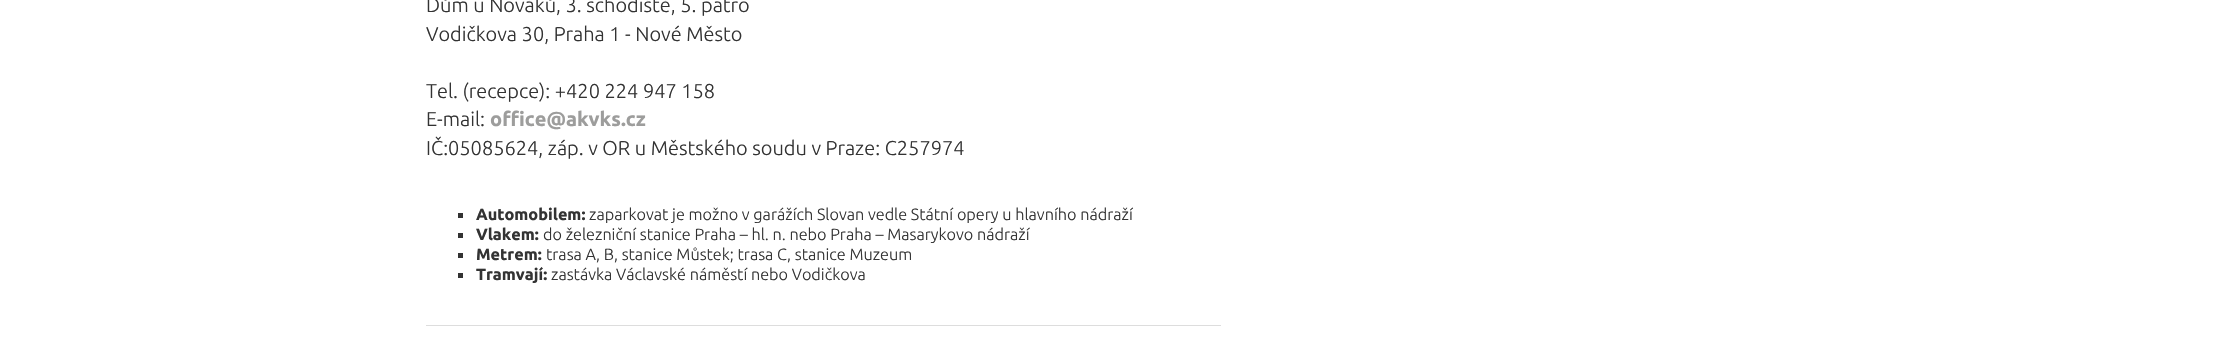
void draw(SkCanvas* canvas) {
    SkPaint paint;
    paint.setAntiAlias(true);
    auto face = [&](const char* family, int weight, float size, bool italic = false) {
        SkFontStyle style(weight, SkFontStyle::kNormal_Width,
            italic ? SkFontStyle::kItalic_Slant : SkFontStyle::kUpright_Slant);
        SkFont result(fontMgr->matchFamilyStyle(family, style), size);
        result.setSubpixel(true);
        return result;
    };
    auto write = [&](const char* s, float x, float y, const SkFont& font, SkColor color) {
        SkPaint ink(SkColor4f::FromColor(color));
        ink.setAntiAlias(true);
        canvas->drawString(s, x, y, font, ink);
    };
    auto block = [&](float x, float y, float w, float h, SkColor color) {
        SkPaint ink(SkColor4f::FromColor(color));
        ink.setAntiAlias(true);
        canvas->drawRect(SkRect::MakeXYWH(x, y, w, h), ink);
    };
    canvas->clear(SK_ColorWHITE);
    auto kFont1 = face("Ubuntu", 300, 20);
    write("Dům u Nováků, 3. schodiště, 5. patro", 426, 12, kFont1, SkColorSetRGB(51, 51, 51));
    write("Vodičkova 30, Praha 1 - Nové Město", 426, 41, kFont1, SkColorSetRGB(51, 51, 51));
    write("Tel. (recepce): +420 224 947 158", 426, 98, kFont1, SkColorSetRGB(51, 51, 51));
    write("E-mail:", 426, 126, kFont1, SkColorSetRGB(51, 51, 51));
    auto kFont2 = face("Ubuntu", 700, 20);
    write("office@akvks.cz", 490, 126, kFont2, SkColorSetRGB(157, 157, 156));
    write("IČ:05085624, záp. v OR u Městského soudu v Praze: C257974", 426, 155, kFont1, SkColorSetRGB(51, 51, 51));
    block(458, 213, 5, 5, SkColorSetRGB(51, 51, 51));
    auto kFont3 = face("Ubuntu", 700, 16.25f);
    write("Automobilem:", 476, 220, kFont3, SkColorSetRGB(51, 51, 51));
    auto kFont4 = face("Ubuntu", 300, 16.25f);
    write("zaparkovat je možno v garážích Slovan vedle Státní opery u hlavního nádraží", 589, 220, kFont4, SkColorSetRGB(51, 51, 51));
    block(458, 233, 5, 5, SkColorSetRGB(51, 51, 51));
    write("Vlakem:", 476, 240, kFont3, SkColorSetRGB(51, 51, 51));
    write("do železniční stanice Praha – hl. n. nebo Praha – Masarykovo nádraží", 543, 240, kFont4, SkColorSetRGB(51, 51, 51));
    block(458, 253, 5, 5, SkColorSetRGB(51, 51, 51));
    write("Metrem:", 476, 260, kFont3, SkColorSetRGB(51, 51, 51));
    write("trasa A, B, stanice Můstek; trasa C, stanice Muzeum", 546, 260, kFont4, SkColorSetRGB(51, 51, 51));
    block(458, 273, 5, 5, SkColorSetRGB(51, 51, 51));
    write("Tramvají:", 476, 280, kFont3, SkColorSetRGB(51, 51, 51));
    write("zastávka Václavské náměstí nebo Vodičkova", 551, 280, kFont4, SkColorSetRGB(51, 51, 51));
    block(426, 325, 795, 1, SkColorSetRGB(221, 221, 221));
}
